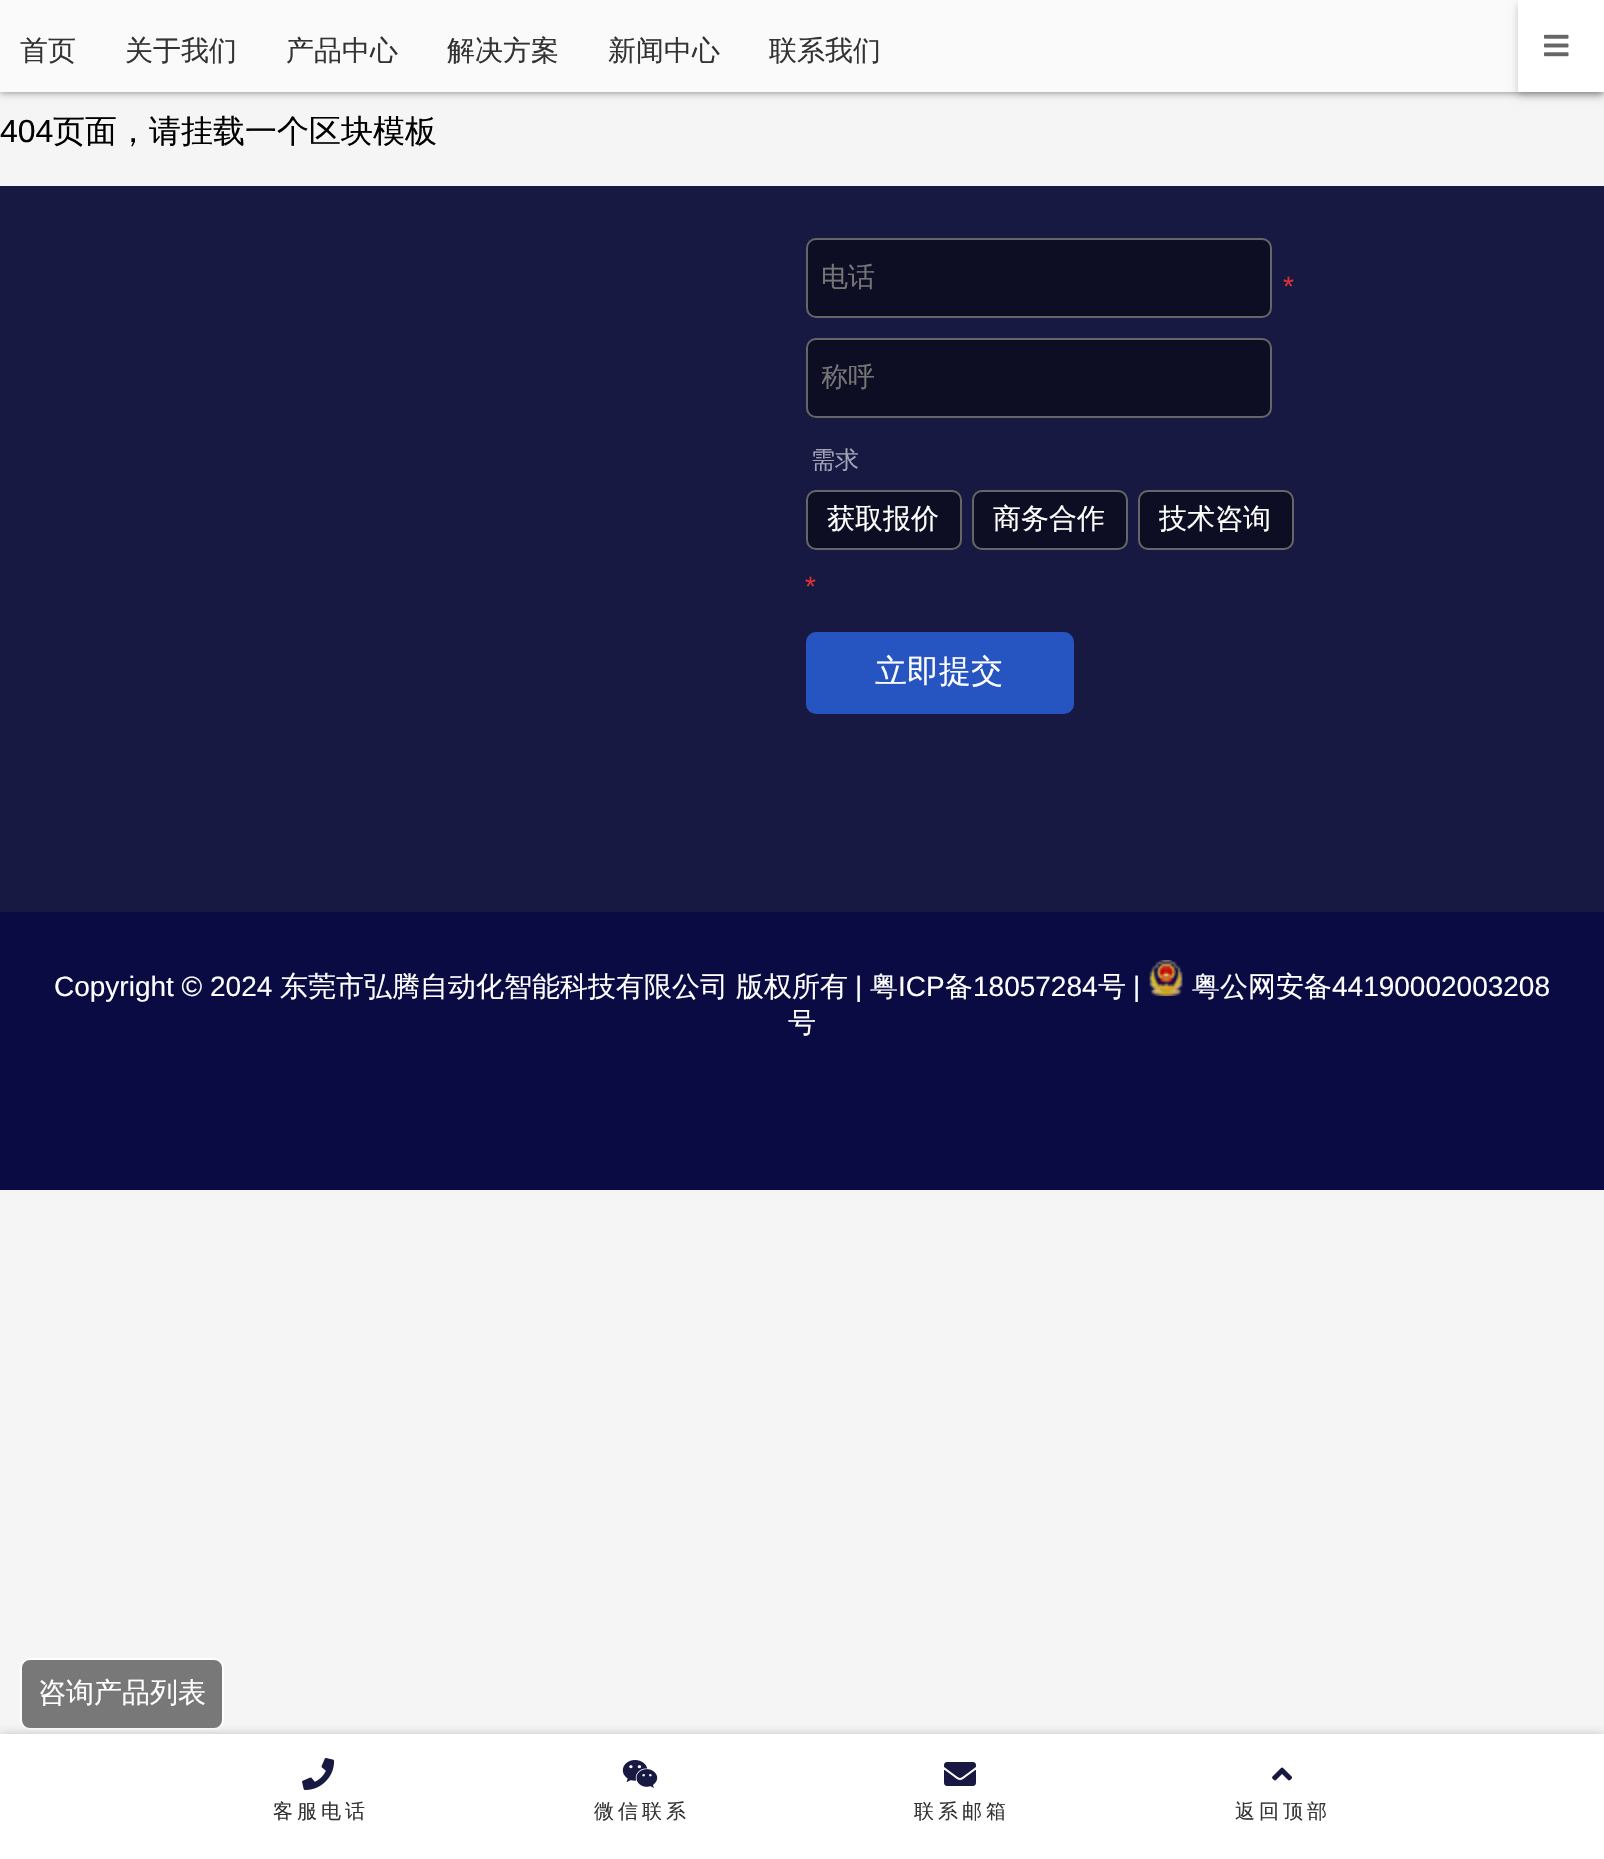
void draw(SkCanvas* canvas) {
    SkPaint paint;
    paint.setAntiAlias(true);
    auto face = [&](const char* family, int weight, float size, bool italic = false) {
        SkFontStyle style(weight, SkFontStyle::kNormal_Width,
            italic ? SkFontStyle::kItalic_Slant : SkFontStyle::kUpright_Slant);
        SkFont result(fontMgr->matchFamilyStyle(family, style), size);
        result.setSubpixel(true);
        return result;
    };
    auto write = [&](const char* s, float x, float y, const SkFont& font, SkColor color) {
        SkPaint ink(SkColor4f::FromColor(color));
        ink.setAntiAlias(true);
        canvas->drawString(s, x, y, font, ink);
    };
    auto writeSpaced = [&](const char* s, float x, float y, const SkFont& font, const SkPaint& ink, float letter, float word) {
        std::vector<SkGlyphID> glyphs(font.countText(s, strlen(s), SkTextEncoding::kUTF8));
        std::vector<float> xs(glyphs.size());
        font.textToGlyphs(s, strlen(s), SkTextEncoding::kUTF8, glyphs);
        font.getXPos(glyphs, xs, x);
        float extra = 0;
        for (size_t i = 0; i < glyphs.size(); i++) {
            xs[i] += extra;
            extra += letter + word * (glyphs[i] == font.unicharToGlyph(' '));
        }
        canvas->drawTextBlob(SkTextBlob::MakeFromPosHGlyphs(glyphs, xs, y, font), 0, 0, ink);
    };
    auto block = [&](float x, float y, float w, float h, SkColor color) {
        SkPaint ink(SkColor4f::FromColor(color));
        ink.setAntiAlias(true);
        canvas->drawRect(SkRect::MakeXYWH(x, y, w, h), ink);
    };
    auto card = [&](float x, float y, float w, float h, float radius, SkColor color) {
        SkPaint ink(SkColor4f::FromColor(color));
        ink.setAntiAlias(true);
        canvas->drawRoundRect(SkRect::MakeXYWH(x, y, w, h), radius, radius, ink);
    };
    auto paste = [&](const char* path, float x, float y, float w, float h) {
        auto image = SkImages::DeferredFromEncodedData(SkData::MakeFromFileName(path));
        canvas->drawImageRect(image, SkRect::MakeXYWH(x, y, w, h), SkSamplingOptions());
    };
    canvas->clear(SkColorSetRGB(245, 245, 245));
    paint.setColor(SkColorSetARGB(128, 0, 0, 0));
    paint.setMaskFilter(SkMaskFilter::MakeBlur(kNormal_SkBlurStyle, 4));
    canvas->drawRect(SkRect::MakeXYWH(0, 0, 1604, 92), paint);
    paint.setMaskFilter(nullptr);
    block(0, 0, 1518, 92, SkColorSetRGB(250, 250, 250));
    auto kFont1 = face("WenQuanYi Zen Hei", 500, 28);
    write("首页", 20, 60, kFont1, SkColorSetRGB(51, 51, 51));
    write("关于我们", 125, 60, kFont1, SkColorSetRGB(51, 51, 51));
    write("产品中心", 286, 60, kFont1, SkColorSetRGB(51, 51, 51));
    write("解决方案", 447, 60, kFont1, SkColorSetRGB(51, 51, 51));
    write("新闻中心", 608, 60, kFont1, SkColorSetRGB(51, 51, 51));
    write("联系我们", 769, 60, kFont1, SkColorSetRGB(51, 51, 51));
    paint.setColor(SkColorSetARGB(51, 0, 0, 0));
    paint.setMaskFilter(SkMaskFilter::MakeBlur(kNormal_SkBlurStyle, 4));
    canvas->drawRect(SkRect::MakeXYWH(1518, 4, 86, 92), paint);
    paint.setMaskFilter(nullptr);
    block(1518, 0, 86, 92, SK_ColorWHITE);
    paste("pic1.png", 1544, 34, 25, 23);
    auto kFont2 = face("Liberation Sans", 400, 32);
    write("404", 0, 142, kFont2, SK_ColorBLACK);
    auto kFont3 = face("WenQuanYi Zen Hei", 500, 32);
    write("页面，请挂载一个区块模板", 53, 142, kFont3, SK_ColorBLACK);
    block(0, 186, 1604, 726, SkColorSetRGB(23, 25, 67));
    paint.setColor(SkColorSetRGB(13, 14, 35));
    canvas->drawRoundRect(SkRect::MakeXYWH(807, 239, 464, 78), 9, 9, paint);
    paint.setStyle(SkPaint::kStroke_Style);
    paint.setStrokeWidth(2);
    paint.setColor(SkColorSetRGB(102, 102, 102));
    canvas->drawRoundRect(SkRect::MakeXYWH(807, 239, 464, 78), 9, 9, paint);
    auto kFont4 = face("WenQuanYi Zen Hei", 500, 27);
    write("电话", 821, 286, kFont4, SkColorSetRGB(117, 117, 117));
    auto kFont5 = face("Liberation Sans", 400, 28);
    write("*", 1283, 296, kFont5, SkColorSetRGB(220, 50, 50));
    paint.setStyle(SkPaint::kFill_Style);
    paint.setColor(SkColorSetRGB(13, 14, 35));
    canvas->drawRoundRect(SkRect::MakeXYWH(807, 339, 464, 78), 9, 9, paint);
    paint.setStyle(SkPaint::kStroke_Style);
    paint.setColor(SkColorSetRGB(102, 102, 102));
    canvas->drawRoundRect(SkRect::MakeXYWH(807, 339, 464, 78), 9, 9, paint);
    canvas->save();
    canvas->clipRect(SkRect::MakeXYWH(822, 360, 434, 36));
    write("称呼", 821, 386, kFont4, SkColorSetRGB(117, 117, 117));
    canvas->restore();
    auto kFont6 = face("WenQuanYi Zen Hei", 500, 24);
    write("需求", 811, 468, kFont6, SkColorSetRGB(162, 163, 180));
    paint.setStyle(SkPaint::kFill_Style);
    paint.setColor(SkColorSetRGB(13, 14, 35));
    canvas->drawRoundRect(SkRect::MakeXYWH(807, 491, 154, 58), 9, 9, paint);
    paint.setStyle(SkPaint::kStroke_Style);
    paint.setColor(SkColorSetRGB(102, 102, 102));
    canvas->drawRoundRect(SkRect::MakeXYWH(807, 491, 154, 58), 9, 9, paint);
    write("获取报价", 827, 528, kFont1, SK_ColorWHITE);
    paint.setStyle(SkPaint::kFill_Style);
    paint.setColor(SkColorSetRGB(13, 14, 35));
    canvas->drawRoundRect(SkRect::MakeXYWH(973, 491, 154, 58), 9, 9, paint);
    paint.setStyle(SkPaint::kStroke_Style);
    paint.setColor(SkColorSetRGB(102, 102, 102));
    canvas->drawRoundRect(SkRect::MakeXYWH(973, 491, 154, 58), 9, 9, paint);
    write("商务合作", 993, 528, kFont1, SK_ColorWHITE);
    paint.setStyle(SkPaint::kFill_Style);
    paint.setColor(SkColorSetRGB(13, 14, 35));
    canvas->drawRoundRect(SkRect::MakeXYWH(1139, 491, 154, 58), 9, 9, paint);
    paint.setStyle(SkPaint::kStroke_Style);
    paint.setColor(SkColorSetRGB(102, 102, 102));
    canvas->drawRoundRect(SkRect::MakeXYWH(1139, 491, 154, 58), 9, 9, paint);
    write("技术咨询", 1159, 528, kFont1, SK_ColorWHITE);
    write("*", 805, 596, kFont5, SkColorSetRGB(220, 50, 50));
    card(806, 632, 268, 82, 10, SkColorSetRGB(38, 85, 193));
    write("立即提交", 875, 682, kFont3, SK_ColorWHITE);
    block(0, 912, 1604, 278, SkColorSetRGB(9, 11, 66));
    write("Copyright © 2024", 54, 996, kFont5, SK_ColorWHITE);
    write("东莞市弘腾自动化智能科技有限公司", 280, 996, kFont1, SK_ColorWHITE);
    write("版权所有", 736, 996, kFont1, SK_ColorWHITE);
    write("|", 855, 996, kFont5, SK_ColorWHITE);
    write("粤", 870, 996, kFont1, SK_ColorWHITE);
    write("ICP", 898, 996, kFont5, SK_ColorWHITE);
    write("备", 945, 996, kFont1, SK_ColorWHITE);
    write("18057284", 973, 996, kFont5, SK_ColorWHITE);
    write("号", 1098, 996, kFont1, SK_ColorWHITE);
    write("|", 1133, 996, kFont5, SK_ColorWHITE);
    paste("pic2.png", 1149, 960, 34, 36);
    write("粤公网安备", 1192, 996, kFont1, SK_ColorWHITE);
    write("44190002003208", 1332, 996, kFont5, SK_ColorWHITE);
    write("号", 788, 1032, kFont1, SK_ColorWHITE);
    paint.setStyle(SkPaint::kFill_Style);
    paint.setColor(SkColorSetRGB(120, 120, 120));
    canvas->drawRoundRect(SkRect::MakeXYWH(21, 1659, 202, 70), 9, 9, paint);
    paint.setStyle(SkPaint::kStroke_Style);
    paint.setColor(SK_ColorWHITE);
    canvas->drawRoundRect(SkRect::MakeXYWH(21, 1659, 202, 70), 9, 9, paint);
    write("咨询产品列表", 38, 1702, kFont1, SK_ColorWHITE);
    paint.setStyle(SkPaint::kFill_Style);
    paint.setColor(SkColorSetARGB(128, 141, 141, 141));
    paint.setMaskFilter(SkMaskFilter::MakeBlur(kNormal_SkBlurStyle, 5));
    canvas->drawRect(SkRect::MakeXYWH(0, 1734, 1604, 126), paint);
    paint.setMaskFilter(nullptr);
    block(0, 1734, 1604, 125, SK_ColorWHITE);
    paste("pic3.png", 302, 1758, 33, 32);
    auto kFont7 = face("WenQuanYi Zen Hei", 500, 20);
    paint.setColor(SkColorSetRGB(51, 51, 51));
    writeSpaced("客服电话", 273, 1818, kFont7, paint, 4, 0);
    paste("pic4.png", 622, 1760, 36, 28);
    writeSpaced("微信联系", 594, 1818, kFont7, paint, 4, 0);
    paste("pic5.png", 944, 1762, 32, 24);
    writeSpaced("联系邮箱", 914, 1818, kFont7, paint, 4, 0);
    paste("pic6.png", 1272, 1767, 20, 14);
    writeSpaced("返回顶部", 1235, 1818, kFont7, paint, 4, 0);
}
